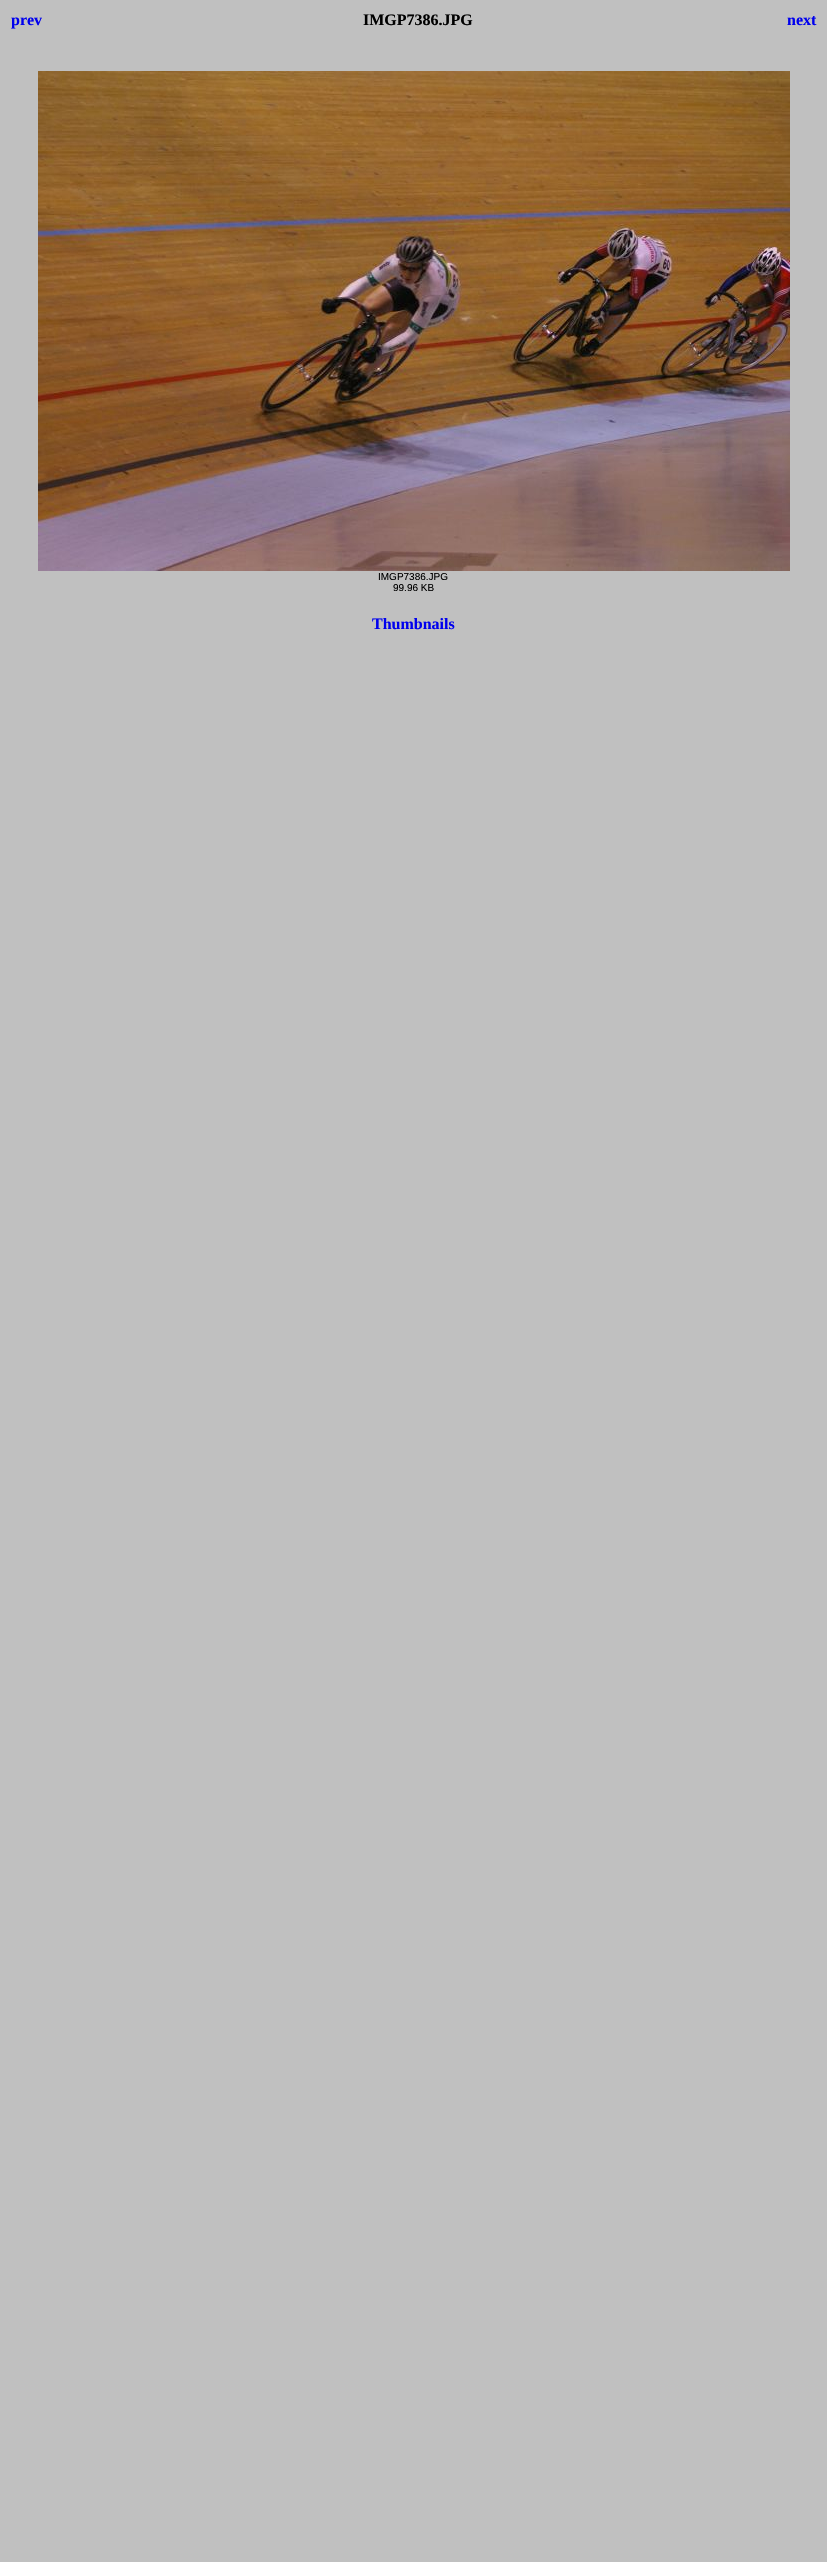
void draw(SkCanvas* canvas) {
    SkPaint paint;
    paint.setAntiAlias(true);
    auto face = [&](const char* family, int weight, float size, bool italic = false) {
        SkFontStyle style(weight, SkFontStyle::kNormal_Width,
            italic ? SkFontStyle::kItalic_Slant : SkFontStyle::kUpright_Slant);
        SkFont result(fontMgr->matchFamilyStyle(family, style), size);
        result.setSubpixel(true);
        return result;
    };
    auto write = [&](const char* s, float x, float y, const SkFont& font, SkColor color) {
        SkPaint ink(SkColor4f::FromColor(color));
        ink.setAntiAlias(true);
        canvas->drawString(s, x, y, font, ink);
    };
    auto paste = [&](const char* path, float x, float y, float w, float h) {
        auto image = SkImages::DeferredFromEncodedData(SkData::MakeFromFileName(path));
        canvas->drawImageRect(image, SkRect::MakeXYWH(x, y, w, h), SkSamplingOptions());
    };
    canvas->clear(SkColorSetRGB(192, 192, 192));
    auto kFont1 = face("Liberation Serif", 700, 16);
    write("prev", 11, 25, kFont1, SkColorSetRGB(0, 0, 238));
    write("IMGP7386.JPG", 363, 25, kFont1, SK_ColorBLACK);
    write("next", 787, 25, kFont1, SkColorSetRGB(0, 0, 238));
    paste("pic1.png", 38, 71, 752, 500);
    auto kFont2 = face("Liberation Sans", 400, 10);
    write("IMGP7386.JPG", 378, 580, kFont2, SK_ColorBLACK);
    write("99.96 KB", 393, 591, kFont2, SK_ColorBLACK);
    write("Thumbnails", 372, 629, kFont1, SkColorSetRGB(0, 0, 238));
}
